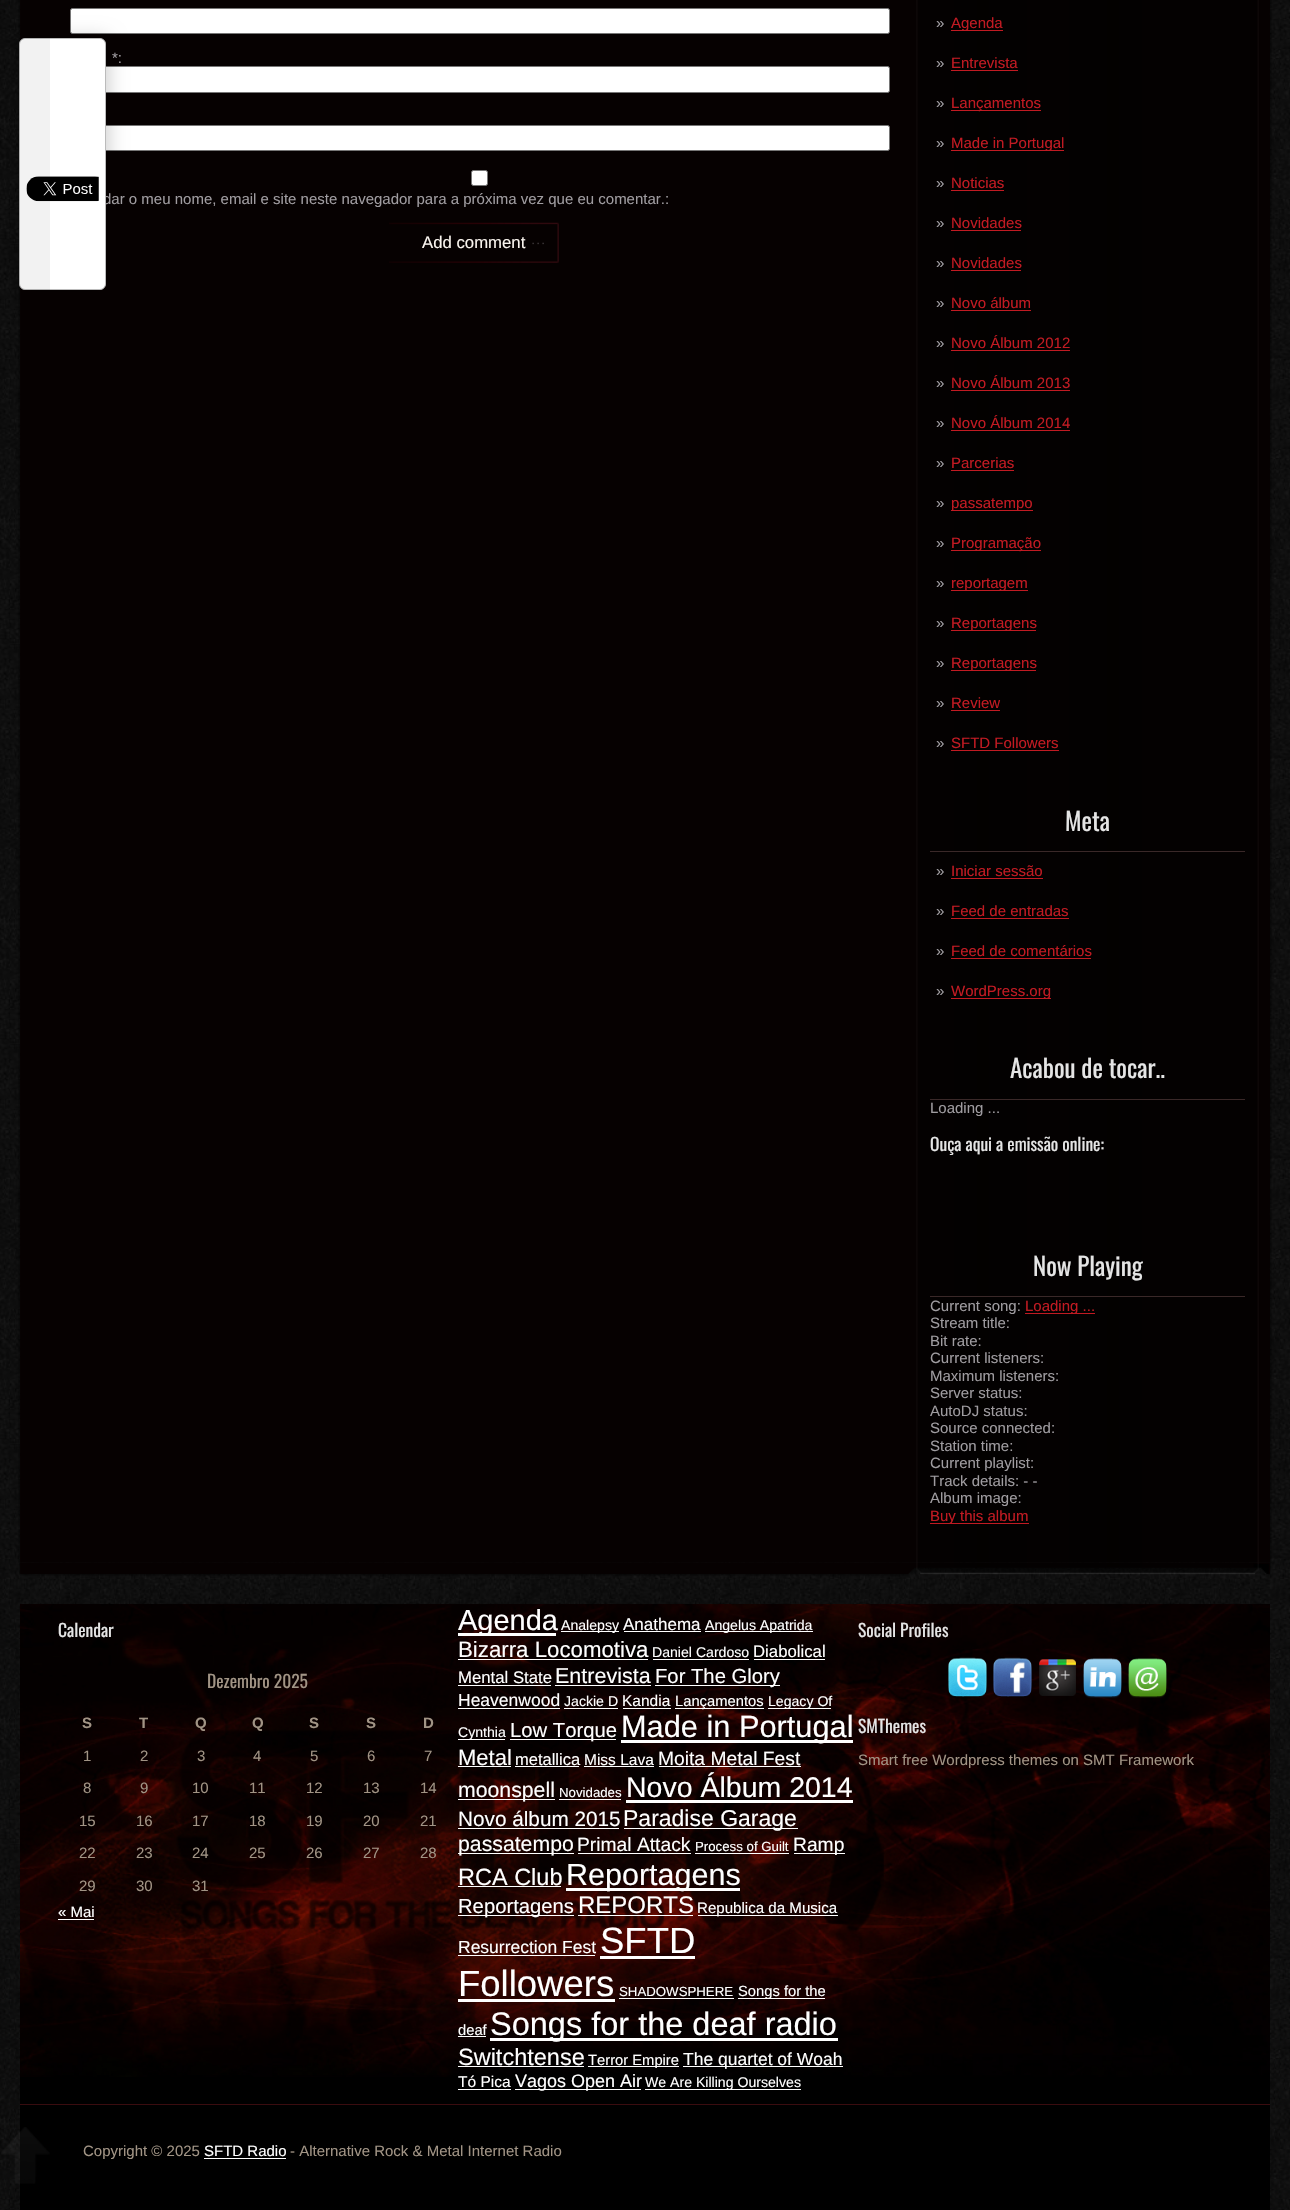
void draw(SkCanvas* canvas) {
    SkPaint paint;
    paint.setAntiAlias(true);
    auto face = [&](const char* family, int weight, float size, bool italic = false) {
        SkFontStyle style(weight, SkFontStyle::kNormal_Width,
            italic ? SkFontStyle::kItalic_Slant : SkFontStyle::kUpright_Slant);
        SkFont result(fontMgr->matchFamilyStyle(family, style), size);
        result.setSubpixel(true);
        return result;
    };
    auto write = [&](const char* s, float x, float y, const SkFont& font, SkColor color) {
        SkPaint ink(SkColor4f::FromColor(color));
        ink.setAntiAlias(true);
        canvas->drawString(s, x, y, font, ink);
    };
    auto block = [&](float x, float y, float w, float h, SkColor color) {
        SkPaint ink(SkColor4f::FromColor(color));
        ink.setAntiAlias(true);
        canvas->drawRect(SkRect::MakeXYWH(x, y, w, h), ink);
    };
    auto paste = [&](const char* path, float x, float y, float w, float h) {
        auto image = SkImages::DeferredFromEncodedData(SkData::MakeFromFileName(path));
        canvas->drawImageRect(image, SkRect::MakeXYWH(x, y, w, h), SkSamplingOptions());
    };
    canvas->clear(SK_ColorWHITE);
    paste("pic1.png", 0, 0, 1290, 2210);
    paste("pic3.png", 18, 0, 1254, 1563);
    paint.setColor(SK_ColorWHITE);
    canvas->drawRoundRect(SkRect::MakeXYWH(70.5f, 8.5f, 819, 25), 2, 2, paint);
    paint.setStyle(SkPaint::kStroke_Style);
    paint.setStrokeWidth(1);
    paint.setColor(SkColorSetRGB(118, 118, 118));
    canvas->drawRoundRect(SkRect::MakeXYWH(70.5f, 8.5f, 819, 25), 2, 2, paint);
    paint.setStyle(SkPaint::kFill_Style);
    paint.setColor(SK_ColorWHITE);
    canvas->drawRoundRect(SkRect::MakeXYWH(70.5f, 66.5f, 819, 26), 2, 2, paint);
    paint.setStyle(SkPaint::kStroke_Style);
    paint.setColor(SkColorSetRGB(118, 118, 118));
    canvas->drawRoundRect(SkRect::MakeXYWH(70.5f, 66.5f, 819, 26), 2, 2, paint);
    paint.setStyle(SkPaint::kFill_Style);
    paint.setColor(SK_ColorWHITE);
    canvas->drawRoundRect(SkRect::MakeXYWH(70.5f, 125.5f, 819, 25), 2, 2, paint);
    paint.setStyle(SkPaint::kStroke_Style);
    paint.setColor(SkColorSetRGB(118, 118, 118));
    canvas->drawRoundRect(SkRect::MakeXYWH(70.5f, 125.5f, 819, 25), 2, 2, paint);
    paint.setStyle(SkPaint::kFill_Style);
    paint.setColor(SkColorSetARGB(51, 0, 0, 0));
    paint.setMaskFilter(SkMaskFilter::MakeBlur(kNormal_SkBlurStyle, 9.5f));
    canvas->drawRoundRect(SkRect::MakeXYWH(20, 38, 88, 252), 6, 6, paint);
    paint.setMaskFilter(nullptr);
    auto kFont1 = face("Liberation Sans", 400, 15);
    write("dar o meu nome, email e site neste navegador para a próxima vez que eu comentar.:", 103, 204, kFont1, SkColorSetRGB(159, 156, 160));
    paint.setColor(SK_ColorWHITE);
    canvas->drawRoundRect(SkRect::MakeXYWH(19.5f, 38.5f, 86, 251), 5.5f, 5.5f, paint);
    paint.setStyle(SkPaint::kStroke_Style);
    paint.setColor(SkColorSetRGB(187, 187, 187));
    canvas->drawRoundRect(SkRect::MakeXYWH(19.5f, 38.5f, 86, 251), 5.5f, 5.5f, paint);
    paste("pic2.png", 26, 176, 73, 26);
    write("*:", 112, 63, kFont1, SkColorSetRGB(159, 156, 160));
    paint.setStyle(SkPaint::kFill_Style);
    paint.setColor(SK_ColorWHITE);
    canvas->drawRoundRect(SkRect::MakeXYWH(471.5f, 170.5f, 16, 15), 2, 2, paint);
    paint.setStyle(SkPaint::kStroke_Style);
    paint.setColor(SkColorSetRGB(118, 118, 118));
    canvas->drawRoundRect(SkRect::MakeXYWH(471.5f, 170.5f, 16, 15), 2, 2, paint);
    paste("pic4.png", 389, 222, 170, 41);
    auto kFont2 = face("Liberation Sans", 400, 16.75f);
    write("Add comment", 422, 248, kFont2, SkColorSetRGB(250, 245, 239));
    write("»", 936, 28, kFont1, SkColorSetRGB(159, 156, 160));
    block(951, 30, 52, 1, SkColorSetRGB(193, 26, 34));
    write("Agenda", 951, 28, kFont1, SkColorSetRGB(193, 26, 34));
    write("»", 936, 68, kFont1, SkColorSetRGB(159, 156, 160));
    write("Entrevista", 951, 68, kFont1, SkColorSetRGB(193, 26, 34));
    block(951, 70, 67, 1, SkColorSetRGB(193, 26, 34));
    write("»", 936, 108, kFont1, SkColorSetRGB(159, 156, 160));
    block(951, 110, 90, 1, SkColorSetRGB(193, 26, 34));
    write("Lançamentos", 951, 108, kFont1, SkColorSetRGB(193, 26, 34));
    write("»", 936, 148, kFont1, SkColorSetRGB(159, 156, 160));
    block(951, 150, 113, 1, SkColorSetRGB(193, 26, 34));
    write("Made in Portugal", 951, 148, kFont1, SkColorSetRGB(193, 26, 34));
    write("»", 936, 188, kFont1, SkColorSetRGB(159, 156, 160));
    write("Noticias", 951, 188, kFont1, SkColorSetRGB(193, 26, 34));
    block(951, 190, 53, 1, SkColorSetRGB(193, 26, 34));
    write("»", 936, 228, kFont1, SkColorSetRGB(159, 156, 160));
    write("Novidades", 951, 228, kFont1, SkColorSetRGB(193, 26, 34));
    block(951, 230, 70, 1, SkColorSetRGB(193, 26, 34));
    write("»", 936, 268, kFont1, SkColorSetRGB(159, 156, 160));
    write("Novidades", 951, 268, kFont1, SkColorSetRGB(193, 26, 34));
    block(951, 270, 70, 1, SkColorSetRGB(193, 26, 34));
    write("»", 936, 308, kFont1, SkColorSetRGB(159, 156, 160));
    write("Novo álbum", 951, 308, kFont1, SkColorSetRGB(193, 26, 34));
    block(951, 310, 80, 1, SkColorSetRGB(193, 26, 34));
    write("»", 936, 348, kFont1, SkColorSetRGB(159, 156, 160));
    write("Novo Álbum 2012", 951, 348, kFont1, SkColorSetRGB(193, 26, 34));
    block(951, 350, 119, 1, SkColorSetRGB(193, 26, 34));
    write("»", 936, 388, kFont1, SkColorSetRGB(159, 156, 160));
    write("Novo Álbum 2013", 951, 388, kFont1, SkColorSetRGB(193, 26, 34));
    block(951, 390, 119, 1, SkColorSetRGB(193, 26, 34));
    write("»", 936, 428, kFont1, SkColorSetRGB(159, 156, 160));
    write("Novo Álbum 2014", 951, 428, kFont1, SkColorSetRGB(193, 26, 34));
    block(951, 430, 119, 1, SkColorSetRGB(193, 26, 34));
    write("»", 936, 468, kFont1, SkColorSetRGB(159, 156, 160));
    write("Parcerias", 951, 468, kFont1, SkColorSetRGB(193, 26, 34));
    block(951, 470, 63, 1, SkColorSetRGB(193, 26, 34));
    write("»", 936, 508, kFont1, SkColorSetRGB(159, 156, 160));
    block(951, 510, 82, 1, SkColorSetRGB(193, 26, 34));
    write("passatempo", 951, 508, kFont1, SkColorSetRGB(193, 26, 34));
    write("»", 936, 548, kFont1, SkColorSetRGB(159, 156, 160));
    block(951, 550, 90, 1, SkColorSetRGB(193, 26, 34));
    write("Programação", 951, 548, kFont1, SkColorSetRGB(193, 26, 34));
    write("»", 936, 588, kFont1, SkColorSetRGB(159, 156, 160));
    block(951, 590, 77, 1, SkColorSetRGB(193, 26, 34));
    write("reportagem", 951, 588, kFont1, SkColorSetRGB(193, 26, 34));
    write("»", 936, 628, kFont1, SkColorSetRGB(159, 156, 160));
    block(951, 630, 85, 1, SkColorSetRGB(193, 26, 34));
    write("Reportagens", 951, 628, kFont1, SkColorSetRGB(193, 26, 34));
    write("»", 936, 668, kFont1, SkColorSetRGB(159, 156, 160));
    block(951, 670, 85, 1, SkColorSetRGB(193, 26, 34));
    write("Reportagens", 951, 668, kFont1, SkColorSetRGB(193, 26, 34));
    write("»", 936, 708, kFont1, SkColorSetRGB(159, 156, 160));
    write("Review", 951, 708, kFont1, SkColorSetRGB(193, 26, 34));
    block(951, 710, 49, 1, SkColorSetRGB(193, 26, 34));
    write("»", 936, 748, kFont1, SkColorSetRGB(159, 156, 160));
    write("SFTD Followers", 951, 748, kFont1, SkColorSetRGB(193, 26, 34));
    block(951, 750, 108, 1, SkColorSetRGB(193, 26, 34));
    block(930, 851, 315, 1, SkColorSetRGB(58, 40, 40));
    auto kFont3 = face("Oswald", 400, 25);
    write("Meta", 1065, 831, kFont3, SkColorSetRGB(229, 229, 229));
    write("»", 936, 876, kFont1, SkColorSetRGB(159, 156, 160));
    write("Iniciar sessão", 951, 876, kFont1, SkColorSetRGB(193, 26, 34));
    block(951, 878, 92, 1, SkColorSetRGB(193, 26, 34));
    write("»", 936, 916, kFont1, SkColorSetRGB(159, 156, 160));
    write("Feed de entradas", 951, 916, kFont1, SkColorSetRGB(193, 26, 34));
    block(951, 918, 118, 1, SkColorSetRGB(193, 26, 34));
    write("»", 936, 956, kFont1, SkColorSetRGB(159, 156, 160));
    write("Feed de comentários", 951, 956, kFont1, SkColorSetRGB(193, 26, 34));
    block(951, 958, 140, 1, SkColorSetRGB(193, 26, 34));
    write("»", 936, 996, kFont1, SkColorSetRGB(159, 156, 160));
    block(951, 998, 100, 1, SkColorSetRGB(193, 26, 34));
    write("WordPress.org", 951, 996, kFont1, SkColorSetRGB(193, 26, 34));
    block(930, 1099, 315, 1, SkColorSetRGB(58, 40, 40));
    write("Acabou de tocar..", 1010, 1078, kFont3, SkColorSetRGB(229, 229, 229));
    write("Loading ...", 930, 1113, kFont1, SkColorSetRGB(159, 156, 160));
    auto kFont4 = face("Oswald", 400, 17.5f);
    write("Ouça aqui a emissão online:", 930, 1151, kFont4, SkColorSetRGB(229, 229, 229));
    block(930, 1296, 315, 1, SkColorSetRGB(58, 40, 40));
    write("Now Playing", 1033, 1276, kFont3, SkColorSetRGB(229, 229, 229));
    write("Current song:", 930, 1311, kFont1, SkColorSetRGB(159, 156, 160));
    block(1025, 1313, 70, 1, SkColorSetRGB(193, 26, 34));
    write("Loading ...", 1025, 1311, kFont1, SkColorSetRGB(193, 26, 34));
    write("Stream title:", 930, 1328, kFont1, SkColorSetRGB(159, 156, 160));
    write("Bit rate:", 930, 1346, kFont1, SkColorSetRGB(159, 156, 160));
    write("Current listeners:", 930, 1363, kFont1, SkColorSetRGB(159, 156, 160));
    write("Maximum listeners:", 930, 1381, kFont1, SkColorSetRGB(159, 156, 160));
    write("Server status:", 930, 1398, kFont1, SkColorSetRGB(159, 156, 160));
    write("AutoDJ status:", 930, 1416, kFont1, SkColorSetRGB(159, 156, 160));
    write("Source connected:", 930, 1433, kFont1, SkColorSetRGB(159, 156, 160));
    write("Station time:", 930, 1451, kFont1, SkColorSetRGB(159, 156, 160));
    write("Current playlist:", 930, 1468, kFont1, SkColorSetRGB(159, 156, 160));
    write("Track details: - -", 930, 1486, kFont1, SkColorSetRGB(159, 156, 160));
    write("Album image:", 930, 1503, kFont1, SkColorSetRGB(159, 156, 160));
    block(930, 1523, 99, 1, SkColorSetRGB(193, 26, 34));
    write("Buy this album", 930, 1521, kFont1, SkColorSetRGB(193, 26, 34));
    paste("pic6.png", 19, 1563, 1252, 13);
    block(20, 2077, 1250, 133, SK_ColorBLACK);
    paste("pic7.png", 20, 1604, 1250, 473);
    block(20, 2104, 1250, 1, SkColorSetRGB(58, 12, 15));
    block(19, 38, 31, 2067, SkColorSetARGB(13, 0, 0, 0));
    paste("pic5.png", 1, 2127, 49, 57);
    write("Calendar", 58, 1637, kFont4, SkColorSetRGB(229, 229, 229));
    write("Dezembro 2025", 207, 1688, kFont4, SkColorSetRGB(161, 148, 133));
    auto kFont5 = face("Liberation Sans", 700, 15);
    write("S", 82, 1728, kFont5, SkColorSetRGB(161, 148, 133));
    write("T", 139, 1728, kFont5, SkColorSetRGB(161, 148, 133));
    write("Q", 195, 1728, kFont5, SkColorSetRGB(161, 148, 133));
    write("Q", 252, 1728, kFont5, SkColorSetRGB(161, 148, 133));
    write("S", 309, 1728, kFont5, SkColorSetRGB(161, 148, 133));
    write("S", 366, 1728, kFont5, SkColorSetRGB(161, 148, 133));
    write("D", 423, 1728, kFont5, SkColorSetRGB(161, 148, 133));
    write("1", 83, 1761, kFont1, SkColorSetRGB(161, 148, 133));
    write("2", 140, 1761, kFont1, SkColorSetRGB(161, 148, 133));
    write("3", 197, 1761, kFont1, SkColorSetRGB(161, 148, 133));
    write("4", 253, 1761, kFont1, SkColorSetRGB(161, 148, 133));
    write("5", 310, 1761, kFont1, SkColorSetRGB(161, 148, 133));
    write("6", 367, 1761, kFont1, SkColorSetRGB(161, 148, 133));
    write("7", 424, 1761, kFont1, SkColorSetRGB(161, 148, 133));
    write("8", 83, 1793, kFont1, SkColorSetRGB(161, 148, 133));
    write("9", 140, 1793, kFont1, SkColorSetRGB(161, 148, 133));
    write("10", 192, 1793, kFont1, SkColorSetRGB(161, 148, 133));
    write("11", 249, 1793, kFont1, SkColorSetRGB(161, 148, 133));
    write("12", 306, 1793, kFont1, SkColorSetRGB(161, 148, 133));
    write("13", 363, 1793, kFont1, SkColorSetRGB(161, 148, 133));
    write("14", 420, 1793, kFont1, SkColorSetRGB(161, 148, 133));
    write("15", 79, 1826, kFont1, SkColorSetRGB(161, 148, 133));
    write("16", 136, 1826, kFont1, SkColorSetRGB(161, 148, 133));
    write("17", 192, 1826, kFont1, SkColorSetRGB(161, 148, 133));
    write("18", 249, 1826, kFont1, SkColorSetRGB(161, 148, 133));
    write("19", 306, 1826, kFont1, SkColorSetRGB(161, 148, 133));
    write("20", 363, 1826, kFont1, SkColorSetRGB(161, 148, 133));
    write("21", 420, 1826, kFont1, SkColorSetRGB(161, 148, 133));
    write("22", 79, 1858, kFont1, SkColorSetRGB(161, 148, 133));
    write("23", 136, 1858, kFont1, SkColorSetRGB(161, 148, 133));
    write("24", 192, 1858, kFont1, SkColorSetRGB(161, 148, 133));
    write("25", 249, 1858, kFont1, SkColorSetRGB(161, 148, 133));
    write("26", 306, 1858, kFont1, SkColorSetRGB(161, 148, 133));
    write("27", 363, 1858, kFont1, SkColorSetRGB(161, 148, 133));
    write("28", 420, 1858, kFont1, SkColorSetRGB(161, 148, 133));
    write("29", 79, 1891, kFont1, SkColorSetRGB(161, 148, 133));
    write("30", 136, 1891, kFont1, SkColorSetRGB(161, 148, 133));
    write("31", 192, 1891, kFont1, SkColorSetRGB(161, 148, 133));
    write("« Mai", 58, 1917, kFont1, SK_ColorWHITE);
    block(58, 1919, 36, 1, SK_ColorWHITE);
    block(458, 1633, 98, 3, SK_ColorWHITE);
    auto kFont6 = face("Liberation Sans", 400, 29);
    write("Agenda", 458, 1630, kFont6, SK_ColorWHITE);
    block(561, 1631, 58, 1, SK_ColorWHITE);
    auto kFont7 = face("Liberation Sans", 400, 14.1f);
    write("Analepsy", 561, 1630, kFont7, SK_ColorWHITE);
    auto kFont8 = face("Liberation Sans", 400, 17);
    write("Anathema", 623, 1630, kFont8, SK_ColorWHITE);
    block(624, 1631, 77, 1, SK_ColorWHITE);
    block(705, 1631, 108, 1, SK_ColorWHITE);
    write("Angelus Apatrida", 705, 1630, kFont7, SK_ColorWHITE);
    auto kFont9 = face("Liberation Sans", 400, 22.25f);
    write("Bizarra Locomotiva", 458, 1657, kFont9, SK_ColorWHITE);
    block(458, 1659, 190, 1, SK_ColorWHITE);
    write("Daniel Cardoso", 652, 1657, kFont7, SK_ColorWHITE);
    block(653, 1659, 96, 1, SK_ColorWHITE);
    write("Diabolical", 753, 1657, kFont2, SK_ColorWHITE);
    block(754, 1659, 71, 1, SK_ColorWHITE);
    write("Mental State", 458, 1683, kFont2, SK_ColorWHITE);
    block(458, 1685, 93, 1, SK_ColorWHITE);
    auto kFont10 = face("Liberation Sans", 400, 21.5f);
    write("Entrevista", 555, 1683, kFont10, SK_ColorWHITE);
    block(555, 1685, 96, 1, SK_ColorWHITE);
    block(655, 1685, 125, 1, SK_ColorWHITE);
    auto kFont11 = face("Liberation Sans", 400, 20.25f);
    write("For The Glory", 655, 1683, kFont11, SK_ColorWHITE);
    auto kFont12 = face("Liberation Sans", 400, 17.5f);
    write("Heavenwood", 458, 1706, kFont12, SK_ColorWHITE);
    block(458, 1708, 102, 1, SK_ColorWHITE);
    write("Jackie D", 564, 1706, kFont7, SK_ColorWHITE);
    block(564, 1708, 54, 1, SK_ColorWHITE);
    auto kFont13 = face("Liberation Sans", 400, 15.5f);
    write("Kandia", 622, 1706, kFont13, SK_ColorWHITE);
    block(623, 1708, 48, 1, SK_ColorWHITE);
    block(675, 1708, 89, 1, SK_ColorWHITE);
    auto kFont14 = face("Liberation Sans", 400, 14.75f);
    write("Lançamentos", 675, 1706, kFont14, SK_ColorWHITE);
    block(768, 1708, 63, 1, SK_ColorWHITE);
    write("Legacy Of", 768, 1706, kFont7, SK_ColorWHITE);
    block(458, 1739, 47, 1, SK_ColorWHITE);
    write("Cynthia", 458, 1737, kFont7, SK_ColorWHITE);
    block(510, 1739, 106, 1, SK_ColorWHITE);
    write("Low Torque", 510, 1737, kFont11, SK_ColorWHITE);
    block(621, 1740, 232, 3, SK_ColorWHITE);
    auto kFont15 = face("Liberation Sans", 400, 30.75f);
    write("Made in Portugal", 621, 1737, kFont15, SK_ColorWHITE);
    auto kFont16 = face("Liberation Sans", 400, 22);
    write("Metal", 458, 1765, kFont16, SK_ColorWHITE);
    block(458, 1766, 53, 1, SK_ColorWHITE);
    auto kFont17 = face("Liberation Sans", 400, 16.5f);
    write("metallica", 515, 1765, kFont17, SK_ColorWHITE);
    block(515, 1766, 64, 1, SK_ColorWHITE);
    write("Miss Lava", 584, 1765, kFont13, SK_ColorWHITE);
    block(584, 1766, 70, 1, SK_ColorWHITE);
    auto kFont18 = face("Liberation Sans", 400, 19.25f);
    write("Moita Metal Fest", 658, 1765, kFont18, SK_ColorWHITE);
    block(659, 1766, 142, 1, SK_ColorWHITE);
    block(458, 1799, 97, 1, SK_ColorWHITE);
    auto kFont19 = face("Liberation Sans", 400, 21.25f);
    write("moonspell", 458, 1797, kFont19, SK_ColorWHITE);
    auto kFont20 = face("Liberation Sans", 400, 13.25f);
    write("Novidades", 559, 1797, kFont20, SK_ColorWHITE);
    block(559, 1799, 62, 1, SK_ColorWHITE);
    auto kFont21 = face("Liberation Sans", 400, 28.5f);
    write("Novo Álbum 2014", 626, 1797, kFont21, SK_ColorWHITE);
    block(626, 1800, 227, 3, SK_ColorWHITE);
    auto kFont22 = face("Liberation Sans", 400, 20.75f);
    write("Novo álbum 2015", 458, 1826, kFont22, SK_ColorWHITE);
    block(458, 1828, 161, 1, SK_ColorWHITE);
    block(624, 1828, 174, 1, SK_ColorWHITE);
    auto kFont23 = face("Liberation Sans", 400, 23);
    write("Paradise Garage", 623, 1826, kFont23, SK_ColorWHITE);
    block(458, 1853, 116, 1, SK_ColorWHITE);
    write("passatempo", 458, 1851, kFont19, SK_ColorWHITE);
    write("Primal Attack", 577, 1851, kFont18, SK_ColorWHITE);
    block(578, 1853, 113, 1, SK_ColorWHITE);
    write("Process of Guilt", 695, 1851, kFont20, SK_ColorWHITE);
    block(695, 1853, 94, 1, SK_ColorWHITE);
    block(794, 1853, 51, 1, SK_ColorWHITE);
    write("Ramp", 793, 1851, kFont18, SK_ColorWHITE);
    auto kFont24 = face("Liberation Sans", 400, 23.5f);
    write("RCA Club", 458, 1885, kFont24, SK_ColorWHITE);
    block(458, 1886, 103, 1, SK_ColorWHITE);
    block(566, 1888, 174, 3, SK_ColorWHITE);
    auto kFont25 = face("Liberation Sans", 400, 30.5f);
    write("Reportagens", 566, 1885, kFont25, SK_ColorWHITE);
    block(458, 1915, 116, 1, SK_ColorWHITE);
    write("Reportagens", 458, 1913, kFont11, SK_ColorWHITE);
    auto kFont26 = face("Liberation Sans", 400, 24);
    write("REPORTS", 578, 1913, kFont26, SK_ColorWHITE);
    block(578, 1915, 115, 1, SK_ColorWHITE);
    block(698, 1915, 140, 1, SK_ColorWHITE);
    auto kFont27 = face("Liberation Sans", 400, 15.1f);
    write("Republica da Musica", 697, 1913, kFont27, SK_ColorWHITE);
    write("Resurrection Fest", 458, 1953, kFont12, SK_ColorWHITE);
    block(458, 1955, 137, 1, SK_ColorWHITE);
    auto kFont28 = face("Liberation Sans", 400, 36.5f);
    write("SFTD", 600, 1953, kFont28, SK_ColorWHITE);
    block(600, 1956, 95, 3, SK_ColorWHITE);
    write("Followers", 458, 1996, kFont28, SK_ColorWHITE);
    block(458, 1999, 157, 3, SK_ColorWHITE);
    write("SHADOWSPHERE", 619, 1996, kFont20, SK_ColorWHITE);
    block(619, 1998, 115, 1, SK_ColorWHITE);
    block(738, 1998, 87, 1, SK_ColorWHITE);
    write("Songs for the", 738, 1996, kFont14, SK_ColorWHITE);
    write("deaf", 458, 2035, kFont14, SK_ColorWHITE);
    block(458, 2036, 28, 1, SK_ColorWHITE);
    block(490, 2038, 348, 3, SK_ColorWHITE);
    auto kFont29 = face("Liberation Sans", 400, 32.5f);
    write("Songs for the deaf radio", 490, 2035, kFont29, SK_ColorWHITE);
    write("Switchtense", 458, 2065, kFont24, SK_ColorWHITE);
    block(458, 2066, 126, 1, SK_ColorWHITE);
    block(588, 2066, 91, 1, SK_ColorWHITE);
    write("Terror Empire", 588, 2065, kFont14, SK_ColorWHITE);
    block(683, 2066, 160, 1, SK_ColorWHITE);
    write("The quartet of Woah", 683, 2065, kFont12, SK_ColorWHITE);
    write("Tó Pica", 458, 2087, kFont13, SK_ColorWHITE);
    block(458, 2089, 53, 1, SK_ColorWHITE);
    block(515, 2089, 126, 1, SK_ColorWHITE);
    auto kFont30 = face("Liberation Sans", 400, 18);
    write("Vagos Open Air", 515, 2087, kFont30, SK_ColorWHITE);
    block(645, 2089, 156, 1, SK_ColorWHITE);
    write("We Are Killing Ourselves", 645, 2087, kFont7, SK_ColorWHITE);
    write("Social Profiles", 858, 1637, kFont4, SkColorSetRGB(229, 229, 229));
    paste("pic8.png", 948, 1657, 39, 41);
    paste("pic9.png", 993, 1657, 39, 41);
    paste("pic10.png", 1039, 1659, 37, 37);
    paste("pic11.png", 1083, 1658, 39, 40);
    paste("pic12.png", 1128, 1658, 39, 40);
    write("SMThemes", 858, 1733, kFont4, SkColorSetRGB(229, 229, 229));
    write("Smart free Wordpress themes on SMT Framework", 858, 1765, kFont1, SkColorSetRGB(161, 148, 133));
    write("Copyright © 2025", 83, 2156, kFont1, SkColorSetRGB(161, 148, 133));
    write("SFTD Radio", 204, 2156, kFont1, SK_ColorWHITE);
    block(204, 2158, 82, 1, SK_ColorWHITE);
    write("- Alternative Rock & Metal Internet Radio", 290, 2156, kFont1, SkColorSetRGB(161, 148, 133));
}
